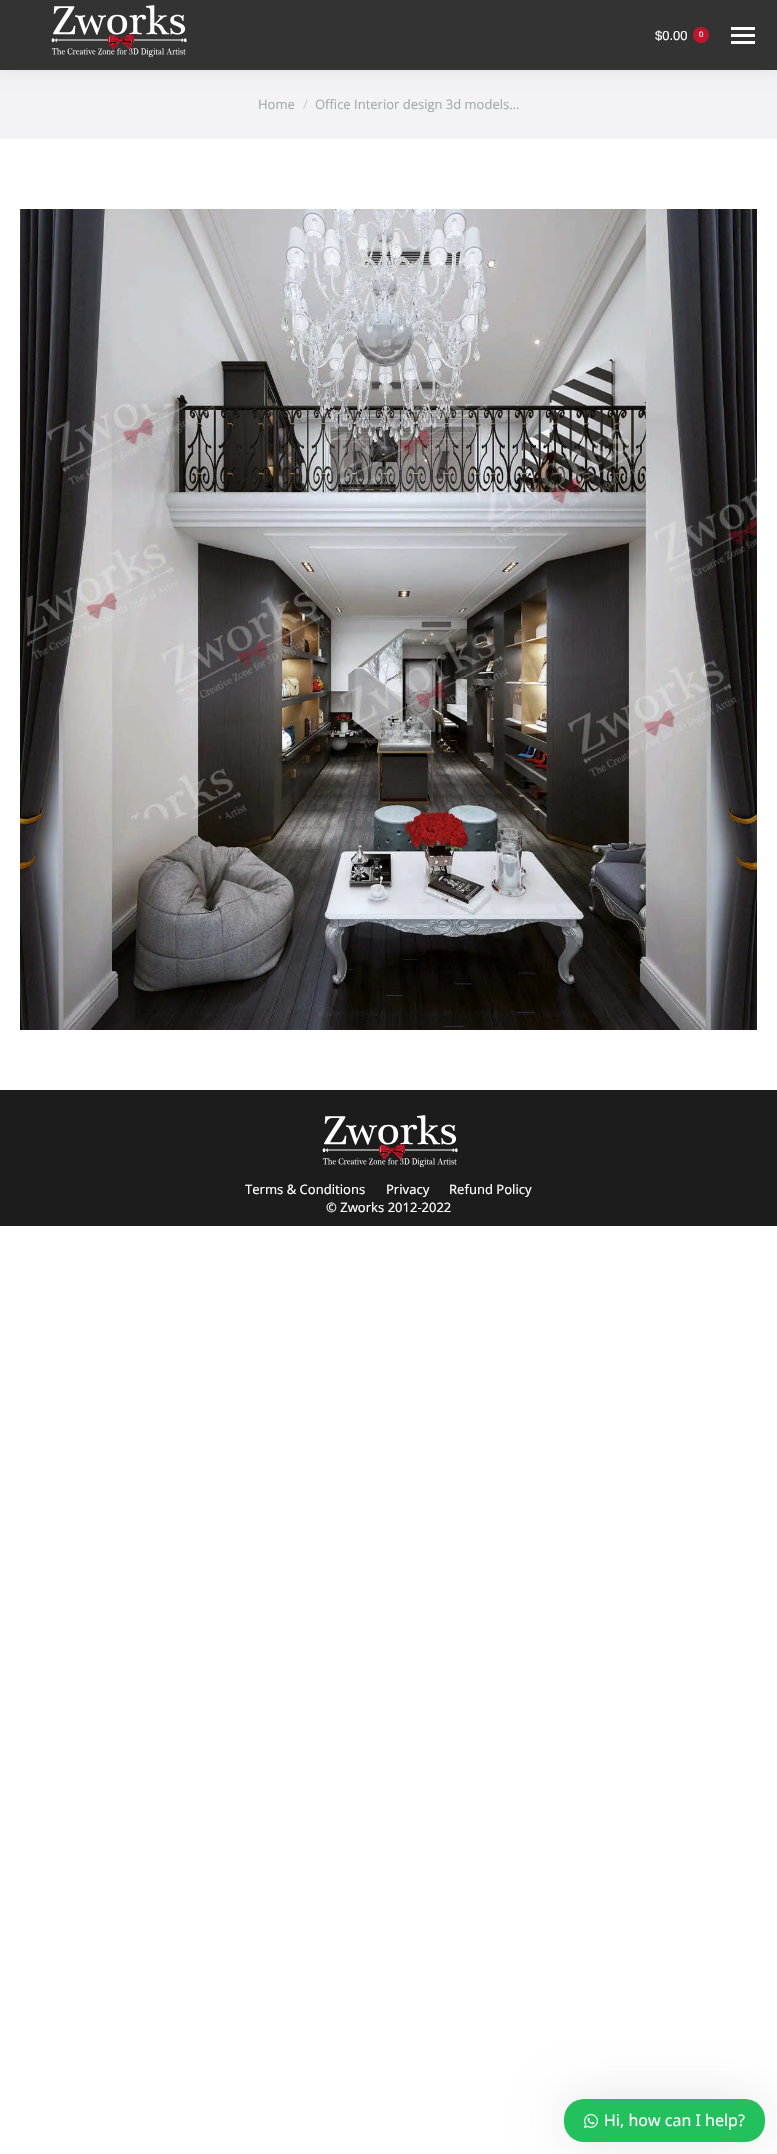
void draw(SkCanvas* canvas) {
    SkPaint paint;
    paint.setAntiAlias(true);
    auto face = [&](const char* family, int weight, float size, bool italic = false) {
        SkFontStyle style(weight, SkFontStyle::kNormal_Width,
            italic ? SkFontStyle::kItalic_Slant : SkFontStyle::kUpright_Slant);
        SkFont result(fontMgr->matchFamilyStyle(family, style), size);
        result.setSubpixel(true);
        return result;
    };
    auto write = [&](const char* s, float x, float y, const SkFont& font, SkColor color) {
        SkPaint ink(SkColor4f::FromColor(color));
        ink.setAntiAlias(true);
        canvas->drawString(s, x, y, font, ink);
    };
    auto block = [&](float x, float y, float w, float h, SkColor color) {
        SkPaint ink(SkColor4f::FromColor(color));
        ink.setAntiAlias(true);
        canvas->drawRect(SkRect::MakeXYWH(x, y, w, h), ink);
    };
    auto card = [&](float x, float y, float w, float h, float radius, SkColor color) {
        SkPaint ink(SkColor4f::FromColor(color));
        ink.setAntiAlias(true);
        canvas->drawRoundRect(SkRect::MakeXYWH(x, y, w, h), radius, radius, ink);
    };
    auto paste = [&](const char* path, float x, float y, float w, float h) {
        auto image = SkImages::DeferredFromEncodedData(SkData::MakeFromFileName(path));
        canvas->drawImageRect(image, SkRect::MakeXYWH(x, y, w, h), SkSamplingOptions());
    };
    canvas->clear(SK_ColorWHITE);
    block(0, 70, 777, 69, SkColorSetRGB(243, 243, 245));
    paint.setColor(SkColorSetARGB(18, 0, 0, 0));
    paint.setMaskFilter(SkMaskFilter::MakeBlur(kNormal_SkBlurStyle, 7.5f));
    canvas->drawRect(SkRect::MakeXYWH(-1, -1, 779, 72), paint);
    paint.setMaskFilter(nullptr);
    block(0, 0, 777, 70, SkColorSetRGB(51, 51, 51));
    paste("pic1.png", 51, 5, 136, 53);
    auto kFont1 = face("Liberation Sans", 400, 13);
    write("$0.00", 655, 40, kFont1, SK_ColorWHITE);
    paint.setColor(SkColorSetRGB(191, 22, 46));
    canvas->drawCircle(701, 35, 8, paint);
    auto kFont2 = face("Liberation Sans", 400, 8);
    write("0", 699, 37, kFont2, SK_ColorWHITE);
    block(731, 27, 24, 3, SK_ColorWHITE);
    block(731, 34, 24, 3, SK_ColorWHITE);
    block(731, 41, 24, 3, SK_ColorWHITE);
    auto kFont3 = face("Open Sans", 400, 13);
    write("Home", 258, 109, kFont3, SkColorSetRGB(165, 168, 172));
    write("/", 303, 109, kFont3, SkColorSetRGB(204, 206, 209));
    write("Office Interior design 3d models…", 315, 109, kFont3, SkColorSetRGB(165, 168, 172));
    paste("pic2.png", 20, 209, 737, 821);
    block(0, 1090, 777, 136, SkColorSetRGB(28, 28, 28));
    paste("pic3.png", 322, 1115, 136, 53);
    auto kFont4 = face("Noto Sans", 400, 13);
    write("Terms & Conditions", 245, 1194, kFont4, SK_ColorWHITE);
    write("Privacy", 386, 1194, kFont4, SK_ColorWHITE);
    write("Refund Policy", 449, 1194, kFont4, SK_ColorWHITE);
    write("© Zworks 2012-2022", 326, 1212, kFont4, SK_ColorWHITE);
    paint.setColor(SkColorSetARGB(26, 0, 0, 0));
    paint.setMaskFilter(SkMaskFilter::MakeBlur(kNormal_SkBlurStyle, 25));
    canvas->drawRoundRect(SkRect::MakeXYWH(564, 2099, 201, 43), 20, 20, paint);
    paint.setMaskFilter(nullptr);
    card(564, 2099, 201, 43, 20, SkColorSetRGB(34, 193, 94));
    paste("pic4.png", 584, 2114, 14, 14);
    auto kFont5 = face("Noto Sans", 400, 16);
    write("Hi, how can I help?", 604, 2126, kFont5, SK_ColorWHITE);
}
